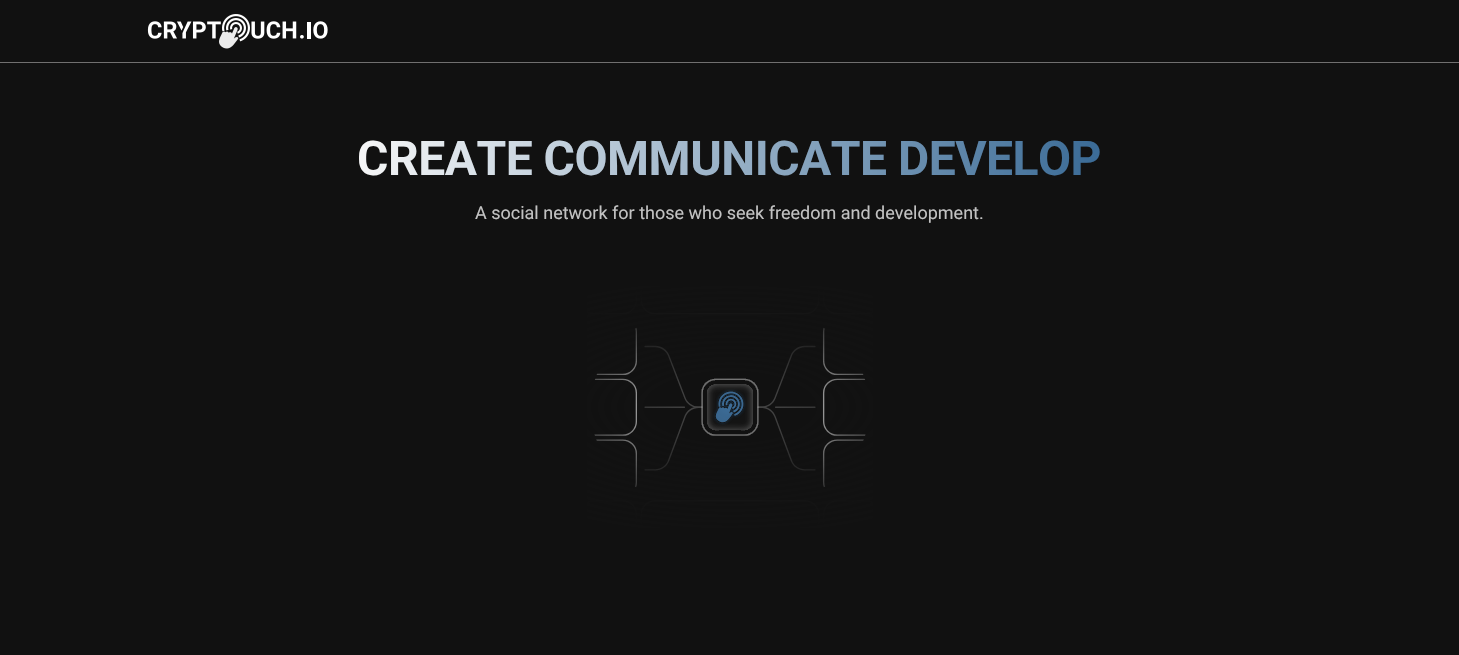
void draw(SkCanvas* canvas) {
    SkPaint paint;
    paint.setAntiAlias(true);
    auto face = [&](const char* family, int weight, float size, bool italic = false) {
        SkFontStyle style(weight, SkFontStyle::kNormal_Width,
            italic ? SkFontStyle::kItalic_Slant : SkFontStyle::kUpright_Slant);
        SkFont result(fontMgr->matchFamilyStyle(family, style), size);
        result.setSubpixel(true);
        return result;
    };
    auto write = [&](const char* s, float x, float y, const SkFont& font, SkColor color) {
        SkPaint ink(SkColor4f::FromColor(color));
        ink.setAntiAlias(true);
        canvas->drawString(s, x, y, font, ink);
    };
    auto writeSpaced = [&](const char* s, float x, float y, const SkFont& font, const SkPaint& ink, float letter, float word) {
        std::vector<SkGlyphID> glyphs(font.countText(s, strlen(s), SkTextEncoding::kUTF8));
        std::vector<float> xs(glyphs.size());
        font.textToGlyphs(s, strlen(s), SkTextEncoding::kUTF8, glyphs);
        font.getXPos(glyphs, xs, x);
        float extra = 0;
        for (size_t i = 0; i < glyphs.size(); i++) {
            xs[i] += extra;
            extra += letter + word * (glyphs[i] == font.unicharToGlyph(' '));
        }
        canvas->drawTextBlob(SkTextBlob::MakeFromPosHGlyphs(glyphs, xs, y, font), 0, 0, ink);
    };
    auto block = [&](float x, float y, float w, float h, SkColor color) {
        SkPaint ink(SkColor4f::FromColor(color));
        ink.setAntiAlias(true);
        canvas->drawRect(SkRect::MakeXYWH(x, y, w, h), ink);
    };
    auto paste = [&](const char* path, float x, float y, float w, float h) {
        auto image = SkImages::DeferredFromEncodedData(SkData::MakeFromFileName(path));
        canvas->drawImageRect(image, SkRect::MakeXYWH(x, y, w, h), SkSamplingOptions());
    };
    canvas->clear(SkColorSetRGB(17, 17, 17));
    block(0, 62, 1459, 1, SkColorSetRGB(113, 112, 112));
    paste("pic1.png", 147, 14, 181, 35);
    auto kFont1 = face("Roboto", 700, 48);
    {
        const SkColor colors[] = {SkColorSetRGB(248, 248, 248), SkColorSetRGB(60, 108, 151)};
        const float stops[] = {0.03f, 0.95f};
        const SkPoint ends[] = {{327, 144}, {1132, 173}};
        paint.setShader(SkGradientShader::MakeLinear(ends, colors, stops, 2, SkTileMode::kClamp));
        paint.setAlpha(255);
    }
    writeSpaced("CREATE COMMUNICATE DEVELOP", 357, 175, kFont1, paint, -0.5f, 0);
    auto kFont2 = face("Roboto", 400, 18);
    write("A social network for those who seek freedom and development.", 475, 219, kFont2, SkColorSetRGB(194, 194, 194));
    paste("pic2.png", 587, 286, 286, 242);
    {
        const SkColor colors[] = {SkColorSetARGB(0, 17, 17, 17), SkColorSetRGB(17, 17, 17)};
        const float stops[] = {0.2f, 0.75f};
        SkMatrix m = SkMatrix::Translate(730, 407).preScale(402, 169);
        paint.setShader(SkGradientShader::MakeRadial({0, 0}, 1, colors, stops, 2, SkTileMode::kClamp, 0, &m));
        paint.setAlpha(255);
    }
    canvas->drawRect(SkRect::MakeXYWH(587, 286, 286, 242), paint);
}
